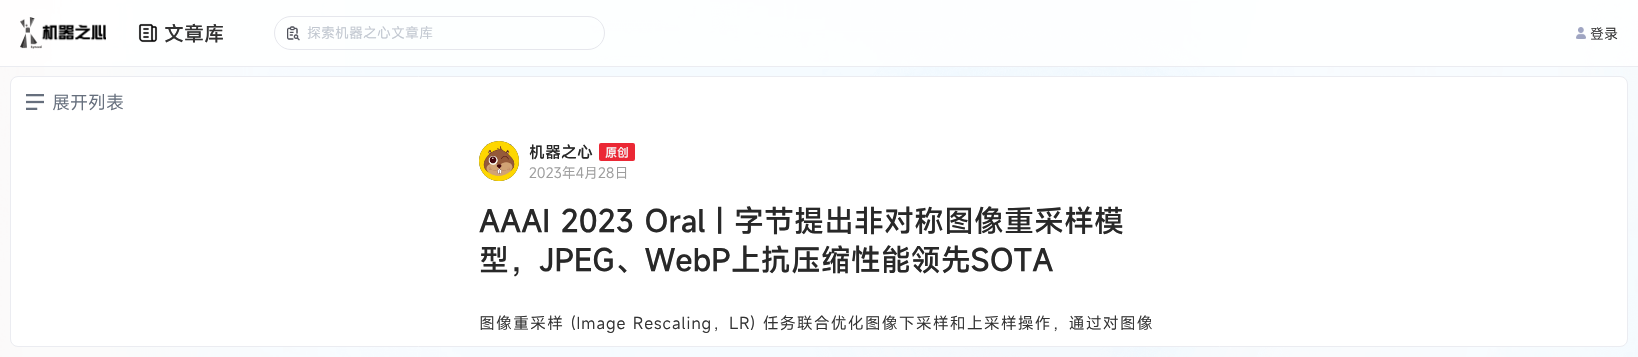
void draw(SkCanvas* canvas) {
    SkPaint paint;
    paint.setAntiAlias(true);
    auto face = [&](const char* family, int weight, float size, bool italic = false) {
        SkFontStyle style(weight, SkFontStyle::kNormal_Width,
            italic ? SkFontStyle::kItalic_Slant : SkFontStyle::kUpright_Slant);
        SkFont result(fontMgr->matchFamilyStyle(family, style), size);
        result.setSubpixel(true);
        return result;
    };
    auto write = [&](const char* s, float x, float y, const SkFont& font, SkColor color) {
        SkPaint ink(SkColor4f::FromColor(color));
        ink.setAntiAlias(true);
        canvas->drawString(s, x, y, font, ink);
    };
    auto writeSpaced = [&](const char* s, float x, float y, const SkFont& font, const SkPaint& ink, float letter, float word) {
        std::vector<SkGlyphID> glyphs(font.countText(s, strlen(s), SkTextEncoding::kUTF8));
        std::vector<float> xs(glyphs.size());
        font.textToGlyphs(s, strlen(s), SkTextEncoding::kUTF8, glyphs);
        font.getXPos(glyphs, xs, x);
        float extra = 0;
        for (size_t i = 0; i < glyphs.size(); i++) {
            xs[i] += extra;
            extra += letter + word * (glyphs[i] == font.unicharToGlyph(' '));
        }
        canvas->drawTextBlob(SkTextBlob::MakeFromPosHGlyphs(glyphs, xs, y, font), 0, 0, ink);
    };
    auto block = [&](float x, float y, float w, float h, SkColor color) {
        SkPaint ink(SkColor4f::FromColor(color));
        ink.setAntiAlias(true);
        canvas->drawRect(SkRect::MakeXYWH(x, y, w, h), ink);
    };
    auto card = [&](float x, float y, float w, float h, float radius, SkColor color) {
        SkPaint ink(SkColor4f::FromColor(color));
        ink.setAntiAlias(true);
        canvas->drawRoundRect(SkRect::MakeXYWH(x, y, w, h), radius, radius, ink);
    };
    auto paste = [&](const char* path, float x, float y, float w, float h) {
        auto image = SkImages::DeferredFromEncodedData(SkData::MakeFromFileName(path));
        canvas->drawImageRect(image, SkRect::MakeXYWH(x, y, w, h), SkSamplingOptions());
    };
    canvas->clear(SK_ColorWHITE);
    paste("pic1.png", 0, 0, 1638, 357);
    block(0, 66, 1638, 1, SkColorSetRGB(235, 236, 241));
    block(0, 0, 1638, 66, SkColorSetARGB(204, 255, 255, 255));
    paste("pic2.png", 20, 17, 86, 32);
    paste("pic3.png", 138, 23, 20, 20);
    auto kFont1 = face("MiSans", 500, 20);
    write("文章库", 164, 41, kFont1, SkColorSetRGB(51, 51, 51));
    paint.setStyle(SkPaint::kStroke_Style);
    paint.setStrokeWidth(1);
    paint.setColor(SkColorSetRGB(230, 231, 237));
    canvas->drawRoundRect(SkRect::MakeXYWH(274.5f, 16.5f, 330, 33), 16.5f, 16.5f, paint);
    paste("pic4.png", 287, 26, 13, 15);
    auto kFont2 = face("MiSans", 400, 14);
    write("探索机器之心文章库", 307, 38, kFont2, SkColorSetRGB(193, 199, 208));
    paste("pic5.png", 1576, 27, 10, 12);
    write("登录", 1590, 39, kFont2, SkColorSetRGB(51, 51, 51));
    paint.setStyle(SkPaint::kFill_Style);
    paint.setColor(SK_ColorWHITE);
    canvas->drawRoundRect(SkRect::MakeXYWH(10.5f, 76.5f, 1617, 270), 7.5f, 7.5f, paint);
    paint.setStyle(SkPaint::kStroke_Style);
    paint.setColor(SkColorSetRGB(235, 236, 241));
    canvas->drawRoundRect(SkRect::MakeXYWH(10.5f, 76.5f, 1617, 270), 7.5f, 7.5f, paint);
    paste("pic6.png", 26, 94, 18, 16);
    auto kFont3 = face("MiSans", 400, 18);
    write("展开列表", 52, 109, kFont3, SkColorSetRGB(102, 111, 125));
    paint.setStyle(SkPaint::kFill_Style);
    paint.setColor(SkColorSetRGB(51, 51, 51));
    canvas->drawCircle(499, 161, 20, paint);
    paste("pic7.png", 479, 141, 40, 40);
    auto kFont4 = face("MiSans", 500, 16);
    write("机器之心", 529, 158, kFont4, SkColorSetRGB(40, 40, 40));
    card(599, 143, 36, 18, 2, SkColorSetRGB(235, 40, 53));
    auto kFont5 = face("MiSans", 500, 12);
    write("原创", 605, 157, kFont5, SkColorSetRGB(246, 246, 246));
    write("2023年4月28日", 529, 178, kFont2, SkColorSetRGB(157, 157, 157));
    auto kFont6 = face("MiSans", 500, 30);
    write("AAAI 2023 Oral | 字节提出非对称图像重采样模", 479, 232, kFont6, SkColorSetRGB(40, 40, 40));
    write("型，JPEG、WebP上抗压缩性能领先SOTA", 479, 271, kFont6, SkColorSetRGB(40, 40, 40));
    auto kFont7 = face("MiSans", 400, 16);
    writeSpaced("图像重采样 (Image Rescaling，LR) 任务联合优化图像下采样和上采样操作，通过对图像", 479, 329, kFont7, paint, 1, 0);
}
